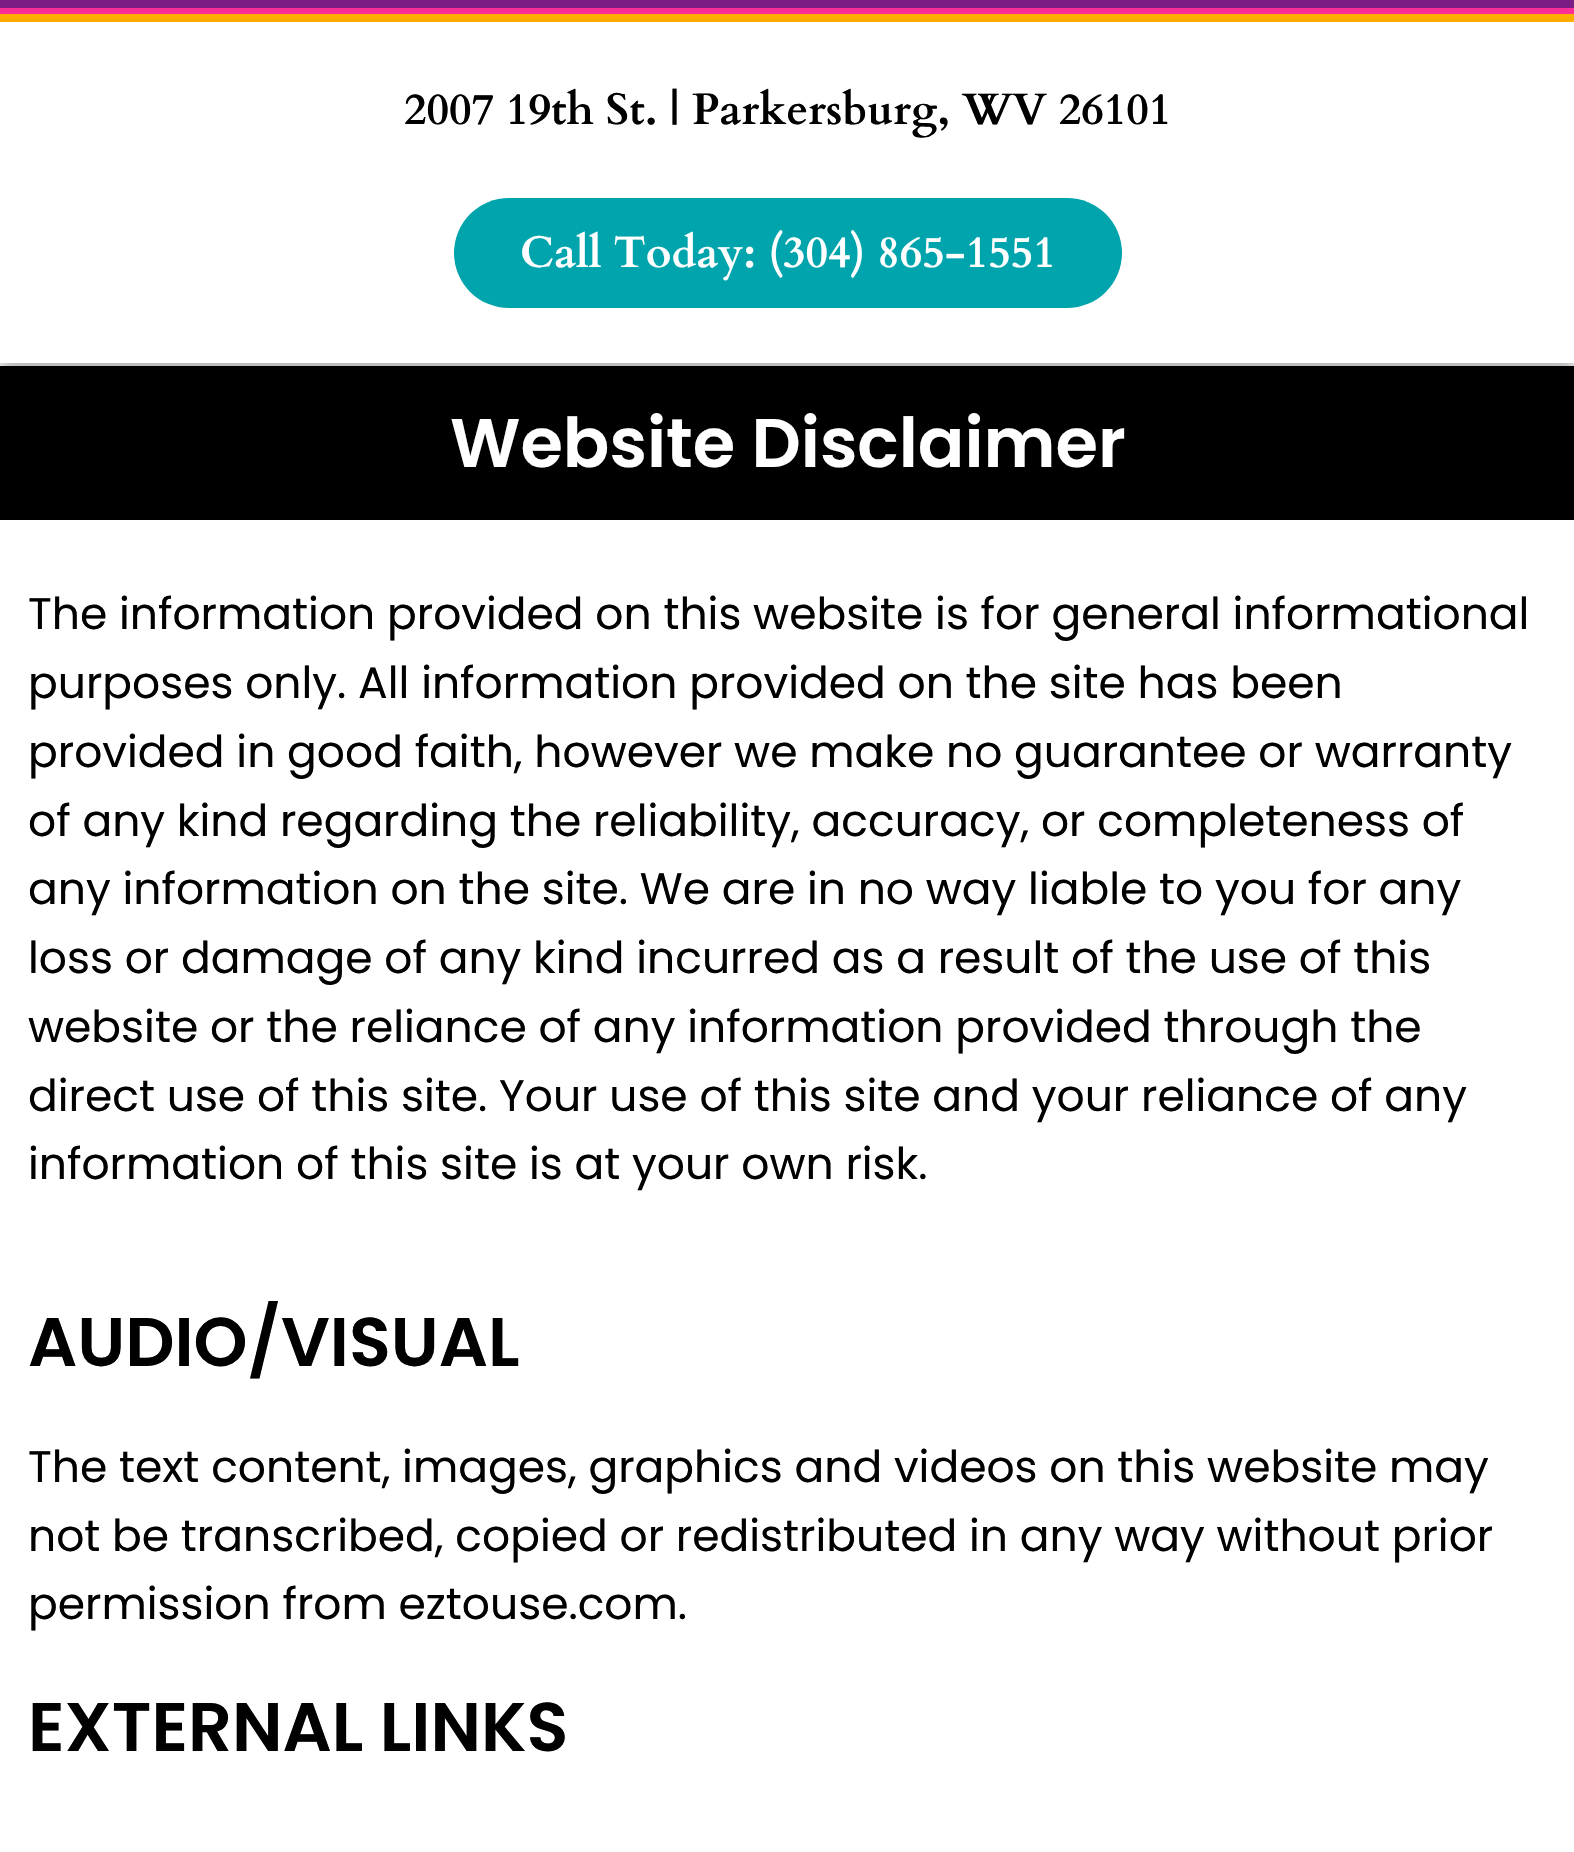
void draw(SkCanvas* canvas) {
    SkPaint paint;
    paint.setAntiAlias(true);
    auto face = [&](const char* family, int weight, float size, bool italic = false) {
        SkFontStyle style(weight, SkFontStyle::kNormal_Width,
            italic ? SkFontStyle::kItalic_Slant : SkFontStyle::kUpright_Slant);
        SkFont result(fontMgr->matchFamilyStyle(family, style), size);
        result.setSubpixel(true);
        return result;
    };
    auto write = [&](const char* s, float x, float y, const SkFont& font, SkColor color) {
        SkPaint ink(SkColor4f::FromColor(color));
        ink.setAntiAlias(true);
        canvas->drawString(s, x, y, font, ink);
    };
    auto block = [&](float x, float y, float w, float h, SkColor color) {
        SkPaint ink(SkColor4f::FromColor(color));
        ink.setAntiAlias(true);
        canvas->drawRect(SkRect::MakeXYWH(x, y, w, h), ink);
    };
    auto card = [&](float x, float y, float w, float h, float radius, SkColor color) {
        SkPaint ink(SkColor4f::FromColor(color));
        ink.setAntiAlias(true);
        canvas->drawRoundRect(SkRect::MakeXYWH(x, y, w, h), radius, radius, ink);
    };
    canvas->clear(SK_ColorWHITE);
    block(0, 8, 1574, 6, SkColorSetRGB(255, 45, 151));
    block(0, 0, 1574, 8, SkColorSetRGB(121, 28, 132));
    block(0, 366, 1574, 154, SK_ColorBLACK);
    canvas->save();
    canvas->clipRect(SkRect::MakeXYWH(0, 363, 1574, 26));
    paint.setColor(SkColorSetARGB(69, 0, 0, 0));
    paint.setMaskFilter(SkMaskFilter::MakeBlur(kNormal_SkBlurStyle, 8));
    canvas->drawRect(SkRect::MakeXYWH(0, 28, 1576, 349), paint);
    paint.setMaskFilter(nullptr);
    canvas->restore();
    block(0, 14, 1574, 8, SkColorSetRGB(255, 174, 0));
    auto kFont1 = face("Cardo", 700, 44);
    write("2007 19th St. | Parkersburg, WV 26101", 404, 124, kFont1, SK_ColorBLACK);
    card(454, 198, 668, 110, 55, SkColorSetRGB(0, 164, 173));
    write("Call Today: (304) 865-1551", 520, 267, kFont1, SK_ColorWHITE);
    auto kFont2 = face("Poppins", 600, 68.75f);
    write("Website Disclaimer", 450, 467, kFont2, SK_ColorWHITE);
    auto kFont3 = face("Poppins", 400, 44);
    write("The information provided on this website is for general informational", 28, 629, kFont3, SK_ColorBLACK);
    write("purposes only. All information provided on the site has been", 28, 698, kFont3, SK_ColorBLACK);
    write("provided in good faith, however we make no guarantee or warranty", 28, 767, kFont3, SK_ColorBLACK);
    write("of any kind regarding the reliability, accuracy, or completeness of", 28, 836, kFont3, SK_ColorBLACK);
    write("any information on the site. We are in no way liable to you for any", 28, 904, kFont3, SK_ColorBLACK);
    write("loss or damage of any kind incurred as a result of the use of this", 28, 973, kFont3, SK_ColorBLACK);
    write("website or the reliance of any information provided through the", 28, 1042, kFont3, SK_ColorBLACK);
    write("direct use of this site. Your use of this site and your reliance of any", 28, 1111, kFont3, SK_ColorBLACK);
    write("information of this site is at your own risk.", 28, 1179, kFont3, SK_ColorBLACK);
    write("AUDIO/VISUAL", 28, 1366, kFont2, SK_ColorBLACK);
    write("The text content, images, graphics and videos on this website may", 28, 1482, kFont3, SK_ColorBLACK);
    write("not be transcribed, copied or redistributed in any way without prior", 28, 1551, kFont3, SK_ColorBLACK);
    write("permission from eztouse.com.", 28, 1619, kFont3, SK_ColorBLACK);
    write("EXTERNAL LINKS", 28, 1751, kFont2, SK_ColorBLACK);
}
